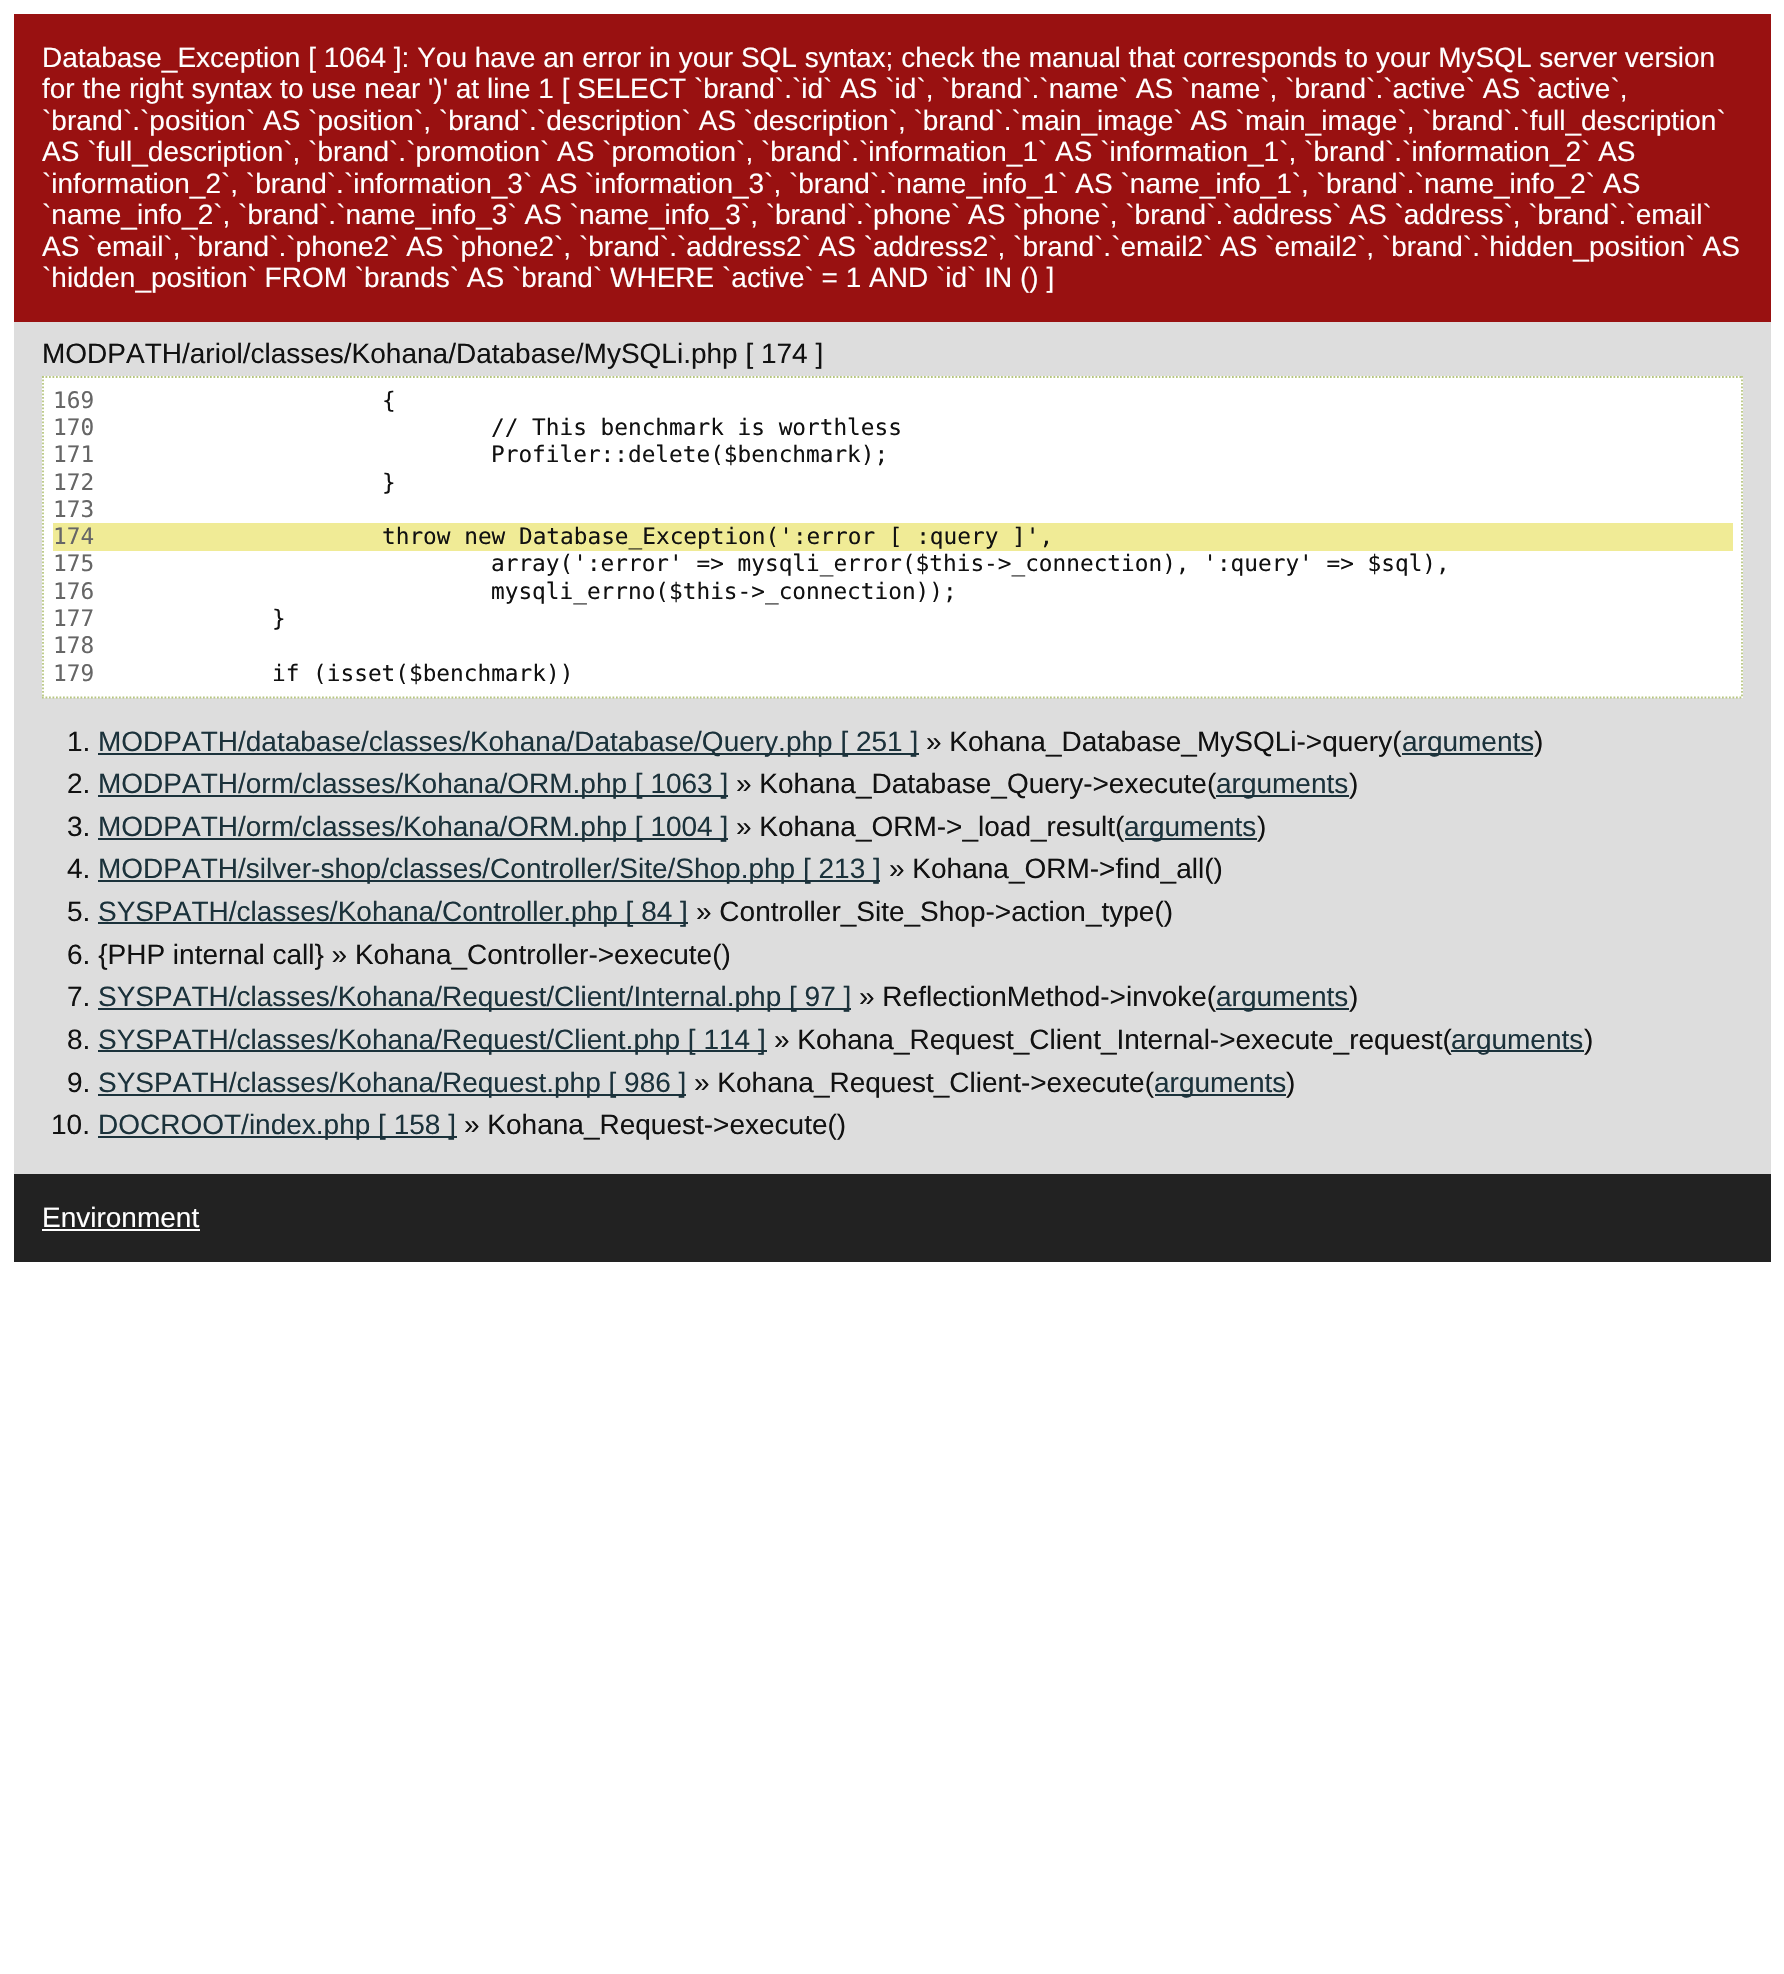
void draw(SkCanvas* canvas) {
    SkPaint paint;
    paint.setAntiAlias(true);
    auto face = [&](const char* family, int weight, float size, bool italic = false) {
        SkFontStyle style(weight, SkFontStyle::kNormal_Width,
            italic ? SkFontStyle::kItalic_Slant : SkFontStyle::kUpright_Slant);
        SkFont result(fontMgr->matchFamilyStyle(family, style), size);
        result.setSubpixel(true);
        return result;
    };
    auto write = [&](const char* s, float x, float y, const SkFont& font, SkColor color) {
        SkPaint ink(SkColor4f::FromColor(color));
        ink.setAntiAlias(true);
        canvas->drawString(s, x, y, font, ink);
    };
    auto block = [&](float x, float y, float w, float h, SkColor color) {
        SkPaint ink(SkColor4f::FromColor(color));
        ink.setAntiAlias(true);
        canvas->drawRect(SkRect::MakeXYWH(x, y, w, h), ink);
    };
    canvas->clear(SK_ColorWHITE);
    block(14, 322, 1757, 852, SkColorSetRGB(221, 221, 221));
    block(14, 14, 1757, 308, SkColorSetRGB(153, 17, 17));
    auto kFont1 = face("Liberation Sans", 400, 28);
    write("Database_Exception [ 1064 ]: You have an error in your SQL syntax; check the manual that corresponds to your MySQL server version", 42, 67, kFont1, SK_ColorWHITE);
    write("for the right syntax to use near ')' at line 1 [ SELECT `brand`.`id` AS `id`, `brand`.`name` AS `name`, `brand`.`active` AS `active`,", 42, 98, kFont1, SK_ColorWHITE);
    write("`brand`.`position` AS `position`, `brand`.`description` AS `description`, `brand`.`main_image` AS `main_image`, `brand`.`full_description`", 42, 130, kFont1, SK_ColorWHITE);
    write("AS `full_description`, `brand`.`promotion` AS `promotion`, `brand`.`information_1` AS `information_1`, `brand`.`information_2` AS", 42, 161, kFont1, SK_ColorWHITE);
    write("`information_2`, `brand`.`information_3` AS `information_3`, `brand`.`name_info_1` AS `name_info_1`, `brand`.`name_info_2` AS", 42, 193, kFont1, SK_ColorWHITE);
    write("`name_info_2`, `brand`.`name_info_3` AS `name_info_3`, `brand`.`phone` AS `phone`, `brand`.`address` AS `address`, `brand`.`email`", 42, 224, kFont1, SK_ColorWHITE);
    write("AS `email`, `brand`.`phone2` AS `phone2`, `brand`.`address2` AS `address2`, `brand`.`email2` AS `email2`, `brand`.`hidden_position` AS", 42, 256, kFont1, SK_ColorWHITE);
    write("`hidden_position` FROM `brands` AS `brand` WHERE `active` = 1 AND `id` IN () ]", 42, 287, kFont1, SK_ColorWHITE);
    write("MODPATH/ariol/classes/Kohana/Database/MySQLi.php [ 174 ]", 42, 363, kFont1, SkColorSetRGB(17, 17, 17));
    block(42, 376, 1701, 322, SK_ColorWHITE);
    paint.setStyle(SkPaint::kStroke_Style);
    paint.setStrokeWidth(1.8f);
    paint.setColor(SkColorSetRGB(183, 198, 128));
    paint.setPathEffect(SkDashPathEffect::Make({{1.75f, 1.75f}}, 0));
    canvas->drawPath(SkPathBuilder().moveTo(42, 377).lineTo(1743, 377).detach(), paint);
    paint.setPathEffect(nullptr);
    paint.setPathEffect(SkDashPathEffect::Make({{1.75f, 1.75f}}, 0));
    canvas->drawPath(SkPathBuilder().moveTo(1742, 376).lineTo(1742, 698).detach(), paint);
    paint.setPathEffect(nullptr);
    paint.setPathEffect(SkDashPathEffect::Make({{1.75f, 1.75f}}, 0));
    canvas->drawPath(SkPathBuilder().moveTo(42, 697.5f).lineTo(1743, 697.5f).detach(), paint);
    paint.setPathEffect(nullptr);
    paint.setPathEffect(SkDashPathEffect::Make({{1.75f, 1.75f}}, 0));
    canvas->drawPath(SkPathBuilder().moveTo(43, 376).lineTo(43, 698).detach(), paint);
    paint.setPathEffect(nullptr);
    auto kFont2 = face("DejaVu Sans Mono", 400, 22.75f);
    write("169", 53, 408, kFont2, SkColorSetRGB(102, 102, 102));
    write("{", 382, 408, kFont2, SkColorSetRGB(17, 17, 17));
    write("170", 53, 435, kFont2, SkColorSetRGB(102, 102, 102));
    write("// This benchmark is worthless", 491, 435, kFont2, SkColorSetRGB(17, 17, 17));
    write("171", 53, 462, kFont2, SkColorSetRGB(102, 102, 102));
    write("Profiler::delete($benchmark);", 491, 462, kFont2, SkColorSetRGB(17, 17, 17));
    write("172", 53, 490, kFont2, SkColorSetRGB(102, 102, 102));
    write("}", 382, 490, kFont2, SkColorSetRGB(17, 17, 17));
    write("173", 53, 517, kFont2, SkColorSetRGB(102, 102, 102));
    block(53, 523, 1680, 28, SkColorSetRGB(240, 235, 150));
    write("174", 53, 544, kFont2, SkColorSetRGB(102, 102, 102));
    write("throw new Database_Exception(':error [ :query ]',", 382, 544, kFont2, SkColorSetRGB(17, 17, 17));
    write("175", 53, 571, kFont2, SkColorSetRGB(102, 102, 102));
    write("array(':error' => mysqli_error($this->_connection), ':query' => $sql),", 491, 571, kFont2, SkColorSetRGB(17, 17, 17));
    write("176", 53, 599, kFont2, SkColorSetRGB(102, 102, 102));
    write("mysqli_errno($this->_connection));", 491, 599, kFont2, SkColorSetRGB(17, 17, 17));
    write("177", 53, 626, kFont2, SkColorSetRGB(102, 102, 102));
    write("}", 272, 626, kFont2, SkColorSetRGB(17, 17, 17));
    write("178", 53, 653, kFont2, SkColorSetRGB(102, 102, 102));
    write("179", 53, 681, kFont2, SkColorSetRGB(102, 102, 102));
    write("if (isset($benchmark))", 272, 681, kFont2, SkColorSetRGB(17, 17, 17));
    write("1.", 67, 751, kFont1, SkColorSetRGB(17, 17, 17));
    block(98, 753, 821, 2, SkColorSetRGB(27, 50, 59));
    write("MODPATH/database/classes/Kohana/Database/Query.php [ 251 ]", 98, 751, kFont1, SkColorSetRGB(27, 50, 59));
    write("» Kohana_Database_MySQLi->query(", 926, 751, kFont1, SkColorSetRGB(17, 17, 17));
    block(1402, 753, 131, 2, SkColorSetRGB(27, 50, 59));
    write("arguments", 1402, 751, kFont1, SkColorSetRGB(27, 50, 59));
    write(")", 1534, 751, kFont1, SkColorSetRGB(17, 17, 17));
    write("2.", 67, 793, kFont1, SkColorSetRGB(17, 17, 17));
    block(98, 795, 630, 2, SkColorSetRGB(27, 50, 59));
    write("MODPATH/orm/classes/Kohana/ORM.php [ 1063 ]", 98, 793, kFont1, SkColorSetRGB(27, 50, 59));
    write("» Kohana_Database_Query->execute(", 736, 793, kFont1, SkColorSetRGB(17, 17, 17));
    block(1216, 795, 133, 2, SkColorSetRGB(27, 50, 59));
    write("arguments", 1216, 793, kFont1, SkColorSetRGB(27, 50, 59));
    write(")", 1349, 793, kFont1, SkColorSetRGB(17, 17, 17));
    write("3.", 67, 836, kFont1, SkColorSetRGB(17, 17, 17));
    block(98, 838, 630, 2, SkColorSetRGB(27, 50, 59));
    write("MODPATH/orm/classes/Kohana/ORM.php [ 1004 ]", 98, 836, kFont1, SkColorSetRGB(27, 50, 59));
    write("» Kohana_ORM->_load_result(", 736, 836, kFont1, SkColorSetRGB(17, 17, 17));
    block(1125, 838, 132, 2, SkColorSetRGB(27, 50, 59));
    write("arguments", 1124, 836, kFont1, SkColorSetRGB(27, 50, 59));
    write(")", 1257, 836, kFont1, SkColorSetRGB(17, 17, 17));
    write("4.", 67, 878, kFont1, SkColorSetRGB(17, 17, 17));
    block(98, 880, 782, 2, SkColorSetRGB(27, 50, 59));
    write("MODPATH/silver-shop/classes/Controller/Site/Shop.php [ 213 ]", 98, 878, kFont1, SkColorSetRGB(27, 50, 59));
    write("» Kohana_ORM->find_all()", 889, 878, kFont1, SkColorSetRGB(17, 17, 17));
    write("5.", 67, 921, kFont1, SkColorSetRGB(17, 17, 17));
    block(98, 922, 590, 2, SkColorSetRGB(27, 50, 59));
    write("SYSPATH/classes/Kohana/Controller.php [ 84 ]", 98, 921, kFont1, SkColorSetRGB(27, 50, 59));
    write("» Controller_Site_Shop->action_type()", 696, 921, kFont1, SkColorSetRGB(17, 17, 17));
    write("6. {PHP internal call} » Kohana_Controller->execute()", 67, 964, kFont1, SkColorSetRGB(17, 17, 17));
    write("7.", 67, 1006, kFont1, SkColorSetRGB(17, 17, 17));
    block(98, 1008, 753, 2, SkColorSetRGB(27, 50, 59));
    write("SYSPATH/classes/Kohana/Request/Client/Internal.php [ 97 ]", 98, 1006, kFont1, SkColorSetRGB(27, 50, 59));
    write("» ReflectionMethod->invoke(", 859, 1006, kFont1, SkColorSetRGB(17, 17, 17));
    block(1216, 1008, 133, 2, SkColorSetRGB(27, 50, 59));
    write("arguments", 1216, 1006, kFont1, SkColorSetRGB(27, 50, 59));
    write(")", 1349, 1006, kFont1, SkColorSetRGB(17, 17, 17));
    write("8.", 67, 1049, kFont1, SkColorSetRGB(17, 17, 17));
    block(98, 1050, 669, 2, SkColorSetRGB(27, 50, 59));
    write("SYSPATH/classes/Kohana/Request/Client.php [ 114 ]", 98, 1049, kFont1, SkColorSetRGB(27, 50, 59));
    write("» Kohana_Request_Client_Internal->execute_request(", 774, 1049, kFont1, SkColorSetRGB(17, 17, 17));
    block(1451, 1050, 133, 2, SkColorSetRGB(27, 50, 59));
    write("arguments", 1451, 1049, kFont1, SkColorSetRGB(27, 50, 59));
    write(")", 1584, 1049, kFont1, SkColorSetRGB(17, 17, 17));
    write("9.", 67, 1092, kFont1, SkColorSetRGB(17, 17, 17));
    block(98, 1094, 588, 2, SkColorSetRGB(27, 50, 59));
    write("SYSPATH/classes/Kohana/Request.php [ 986 ]", 98, 1092, kFont1, SkColorSetRGB(27, 50, 59));
    write("» Kohana_Request_Client->execute(", 694, 1092, kFont1, SkColorSetRGB(17, 17, 17));
    block(1155, 1094, 131, 2, SkColorSetRGB(27, 50, 59));
    write("arguments", 1154, 1092, kFont1, SkColorSetRGB(27, 50, 59));
    write(")", 1286, 1092, kFont1, SkColorSetRGB(17, 17, 17));
    write("10.", 51, 1134, kFont1, SkColorSetRGB(17, 17, 17));
    block(98, 1136, 359, 2, SkColorSetRGB(27, 50, 59));
    write("DOCROOT/index.php [ 158 ]", 98, 1134, kFont1, SkColorSetRGB(27, 50, 59));
    write("» Kohana_Request->execute()", 464, 1134, kFont1, SkColorSetRGB(17, 17, 17));
    block(14, 1174, 1757, 88, SkColorSetRGB(34, 34, 34));
    write("Environment", 42, 1227, kFont1, SK_ColorWHITE);
    block(42, 1229, 158, 2, SK_ColorWHITE);
}
